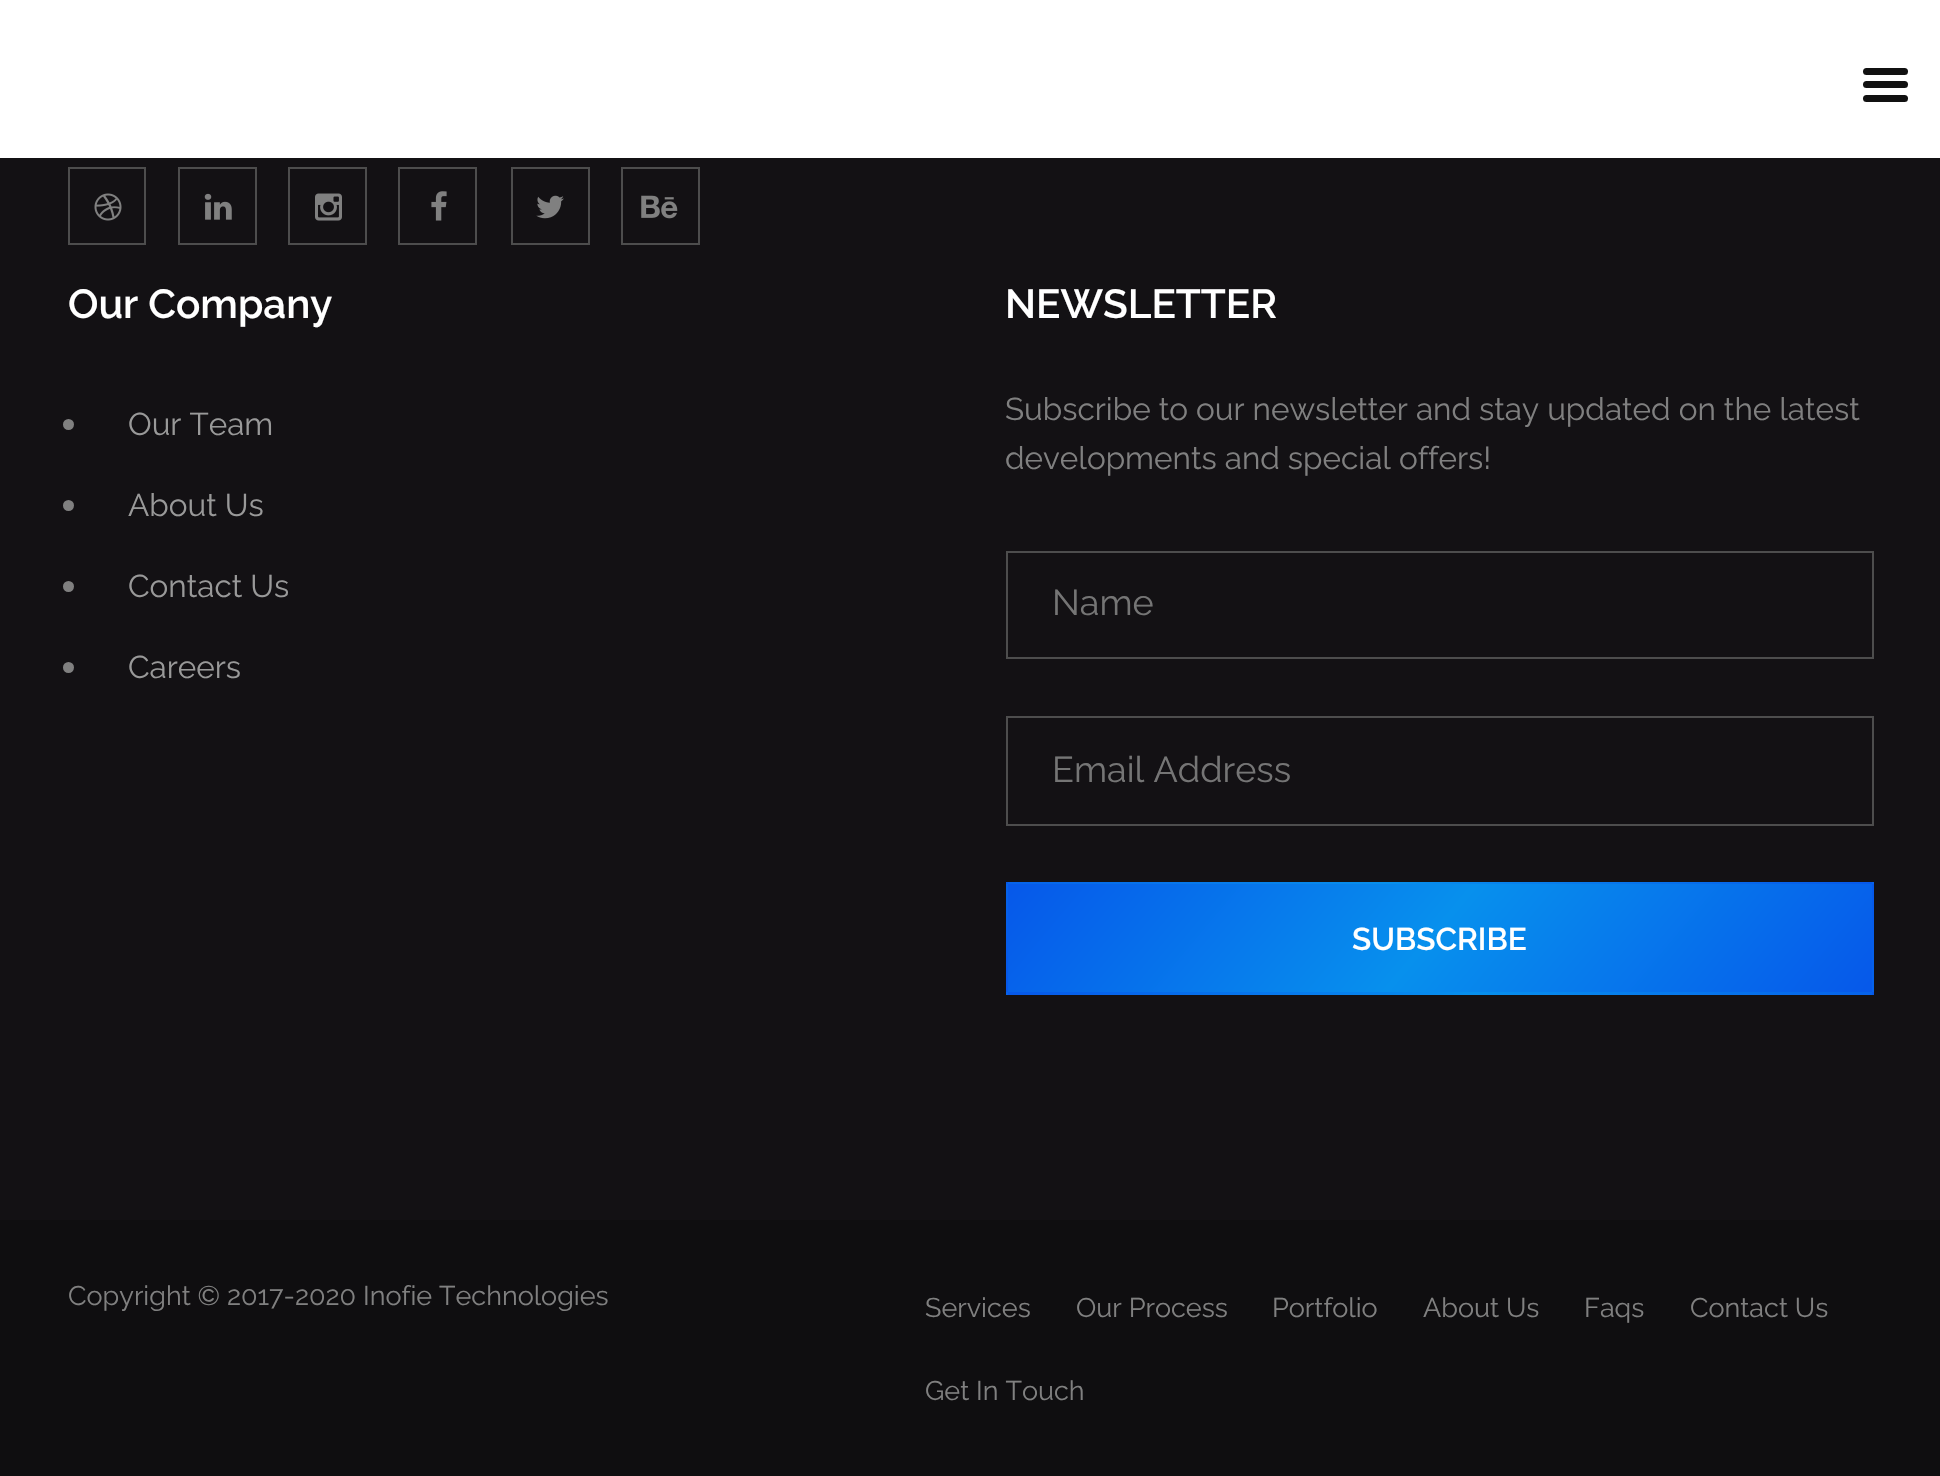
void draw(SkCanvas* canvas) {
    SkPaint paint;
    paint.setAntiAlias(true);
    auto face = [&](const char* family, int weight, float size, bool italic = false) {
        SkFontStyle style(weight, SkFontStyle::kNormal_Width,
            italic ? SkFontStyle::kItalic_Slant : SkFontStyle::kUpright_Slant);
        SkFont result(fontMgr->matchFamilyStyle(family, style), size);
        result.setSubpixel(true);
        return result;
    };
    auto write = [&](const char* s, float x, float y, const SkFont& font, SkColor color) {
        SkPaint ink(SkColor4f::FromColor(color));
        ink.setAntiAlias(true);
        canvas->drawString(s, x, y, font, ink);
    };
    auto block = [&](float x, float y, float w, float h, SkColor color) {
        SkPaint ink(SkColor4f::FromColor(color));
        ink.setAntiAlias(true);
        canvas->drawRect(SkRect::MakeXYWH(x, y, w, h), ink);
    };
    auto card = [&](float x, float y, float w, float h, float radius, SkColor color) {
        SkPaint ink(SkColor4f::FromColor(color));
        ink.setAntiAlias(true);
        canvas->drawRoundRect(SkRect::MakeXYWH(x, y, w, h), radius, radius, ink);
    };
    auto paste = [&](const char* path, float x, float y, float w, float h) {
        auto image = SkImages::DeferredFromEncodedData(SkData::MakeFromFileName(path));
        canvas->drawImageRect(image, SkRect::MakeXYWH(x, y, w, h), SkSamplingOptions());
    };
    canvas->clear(SkColorSetRGB(19, 17, 20));
    block(0, 0, 1940, 158, SK_ColorWHITE);
    card(1863, 81, 45, 7, 3.5f, SkColorSetRGB(17, 17, 17));
    card(1863, 68, 45, 7, 3.5f, SkColorSetRGB(17, 17, 17));
    card(1863, 95, 45, 7, 3.5f, SkColorSetRGB(17, 17, 17));
    paint.setStyle(SkPaint::kStroke_Style);
    paint.setStrokeWidth(2);
    paint.setColor(SkColorSetRGB(77, 77, 77));
    canvas->drawRect(SkRect::MakeXYWH(69, 168, 76, 76), paint);
    paste("pic1.png", 94, 193, 28, 28);
    canvas->drawRect(SkRect::MakeXYWH(179, 168, 77, 76), paint);
    paste("pic2.png", 204, 193, 28, 27);
    canvas->drawRect(SkRect::MakeXYWH(289, 168, 77, 76), paint);
    paste("pic3.png", 315, 193, 27, 28);
    canvas->drawRect(SkRect::MakeXYWH(399, 168, 77, 76), paint);
    paste("pic4.png", 431, 191, 16, 30);
    canvas->drawRect(SkRect::MakeXYWH(512, 168, 77, 76), paint);
    paste("pic5.png", 536, 195, 28, 24);
    canvas->drawRect(SkRect::MakeXYWH(622, 168, 77, 76), paint);
    paste("pic6.png", 641, 195, 37, 24);
    auto kFont1 = face("Raleway", 600, 40.5f);
    write("Our Company", 68, 318, kFont1, SK_ColorWHITE);
    paint.setStyle(SkPaint::kFill_Style);
    paint.setColor(SkColorSetRGB(128, 128, 128));
    canvas->drawCircle(68.5f, 424.5f, 5.5f, paint);
    auto kFont2 = face("Raleway", 400, 31.5f);
    write("Our Team", 128, 435, kFont2, SkColorSetRGB(153, 153, 153));
    canvas->drawCircle(68.5f, 505.5f, 5.5f, paint);
    write("About Us", 128, 516, kFont2, SkColorSetRGB(153, 153, 153));
    canvas->drawCircle(68.5f, 586.5f, 5.5f, paint);
    write("Contact Us", 128, 597, kFont2, SkColorSetRGB(153, 153, 153));
    canvas->drawCircle(68.5f, 667.5f, 5.5f, paint);
    write("Careers", 128, 678, kFont2, SkColorSetRGB(153, 153, 153));
    write("NEWSLETTER", 1005, 318, kFont1, SK_ColorWHITE);
    write("Subscribe to our newsletter and stay updated on the latest", 1005, 420, kFont2, SkColorSetRGB(128, 128, 128));
    write("developments and special offers!", 1005, 469, kFont2, SkColorSetRGB(128, 128, 128));
    paint.setStyle(SkPaint::kStroke_Style);
    paint.setColor(SkColorSetRGB(77, 77, 77));
    canvas->drawRect(SkRect::MakeXYWH(1007, 552, 866, 106), paint);
    auto kFont3 = face("Raleway", 400, 36);
    write("Name", 1052, 615, kFont3, SkColorSetRGB(117, 117, 117));
    canvas->drawRect(SkRect::MakeXYWH(1007, 717, 866, 108), paint);
    write("Email Address", 1052, 782, kFont3, SkColorSetRGB(117, 117, 117));
    paint.setStyle(SkPaint::kFill_Style);
    {
        const SkColor colors[] = {SkColorSetRGB(6, 88, 234), SkColorSetRGB(7, 144, 237), SkColorSetRGB(6, 88, 234)};
        const float stops[] = {0, 0.49f, 1};
        const SkPoint ends[] = {{296, 595}, {856, 1065}};
        paint.setShader(SkGradientShader::MakeLinear(ends, colors, stops, 3, SkTileMode::kClamp));
        paint.setAlpha(255);
    }
    canvas->drawRect(SkRect::MakeXYWH(1006, 882, 2, 2), paint);
    {
        const SkColor colors[] = {SkColorSetRGB(6, 88, 234), SkColorSetRGB(7, 144, 237), SkColorSetRGB(6, 88, 234)};
        const float stops[] = {0, 0.49f, 1};
        const SkPoint ends[] = {{1160, 595}, {1720, 1065}};
        paint.setShader(SkGradientShader::MakeLinear(ends, colors, stops, 3, SkTileMode::kClamp));
        paint.setAlpha(255);
    }
    canvas->drawRect(SkRect::MakeXYWH(1008, 882, 864, 2), paint);
    {
        const SkColor colors[] = {SkColorSetRGB(6, 88, 234), SkColorSetRGB(7, 144, 237), SkColorSetRGB(6, 88, 234)};
        const float stops[] = {0, 0.49f, 1};
        const SkPoint ends[] = {{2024, 595}, {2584, 1065}};
        paint.setShader(SkGradientShader::MakeLinear(ends, colors, stops, 3, SkTileMode::kClamp));
        paint.setAlpha(255);
    }
    canvas->drawRect(SkRect::MakeXYWH(1872, 882, 2, 2), paint);
    {
        const SkColor colors[] = {SkColorSetRGB(6, 88, 234), SkColorSetRGB(7, 144, 237), SkColorSetRGB(6, 88, 234)};
        const float stops[] = {0, 0.49f, 1};
        const SkPoint ends[] = {{296, 703}, {856, 1173}};
        paint.setShader(SkGradientShader::MakeLinear(ends, colors, stops, 3, SkTileMode::kClamp));
        paint.setAlpha(255);
    }
    canvas->drawRect(SkRect::MakeXYWH(1006, 884, 2, 108), paint);
    {
        const SkColor colors[] = {SkColorSetRGB(6, 88, 234), SkColorSetRGB(7, 144, 237), SkColorSetRGB(6, 88, 234)};
        const float stops[] = {0, 0.49f, 1};
        const SkPoint ends[] = {{1160, 703}, {1720, 1173}};
        paint.setShader(SkGradientShader::MakeLinear(ends, colors, stops, 3, SkTileMode::kClamp));
        paint.setAlpha(255);
    }
    canvas->drawRect(SkRect::MakeXYWH(1008, 884, 864, 108), paint);
    {
        const SkColor colors[] = {SkColorSetRGB(6, 88, 234), SkColorSetRGB(7, 144, 237), SkColorSetRGB(6, 88, 234)};
        const float stops[] = {0, 0.49f, 1};
        const SkPoint ends[] = {{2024, 703}, {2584, 1173}};
        paint.setShader(SkGradientShader::MakeLinear(ends, colors, stops, 3, SkTileMode::kClamp));
        paint.setAlpha(255);
    }
    canvas->drawRect(SkRect::MakeXYWH(1872, 884, 2, 108), paint);
    {
        const SkColor colors[] = {SkColorSetRGB(6, 88, 234), SkColorSetRGB(7, 144, 237), SkColorSetRGB(6, 88, 234)};
        const float stops[] = {0, 0.49f, 1};
        const SkPoint ends[] = {{296, 811}, {856, 1281}};
        paint.setShader(SkGradientShader::MakeLinear(ends, colors, stops, 3, SkTileMode::kClamp));
        paint.setAlpha(255);
    }
    canvas->drawRect(SkRect::MakeXYWH(1006, 992, 2, 3), paint);
    {
        const SkColor colors[] = {SkColorSetRGB(6, 88, 234), SkColorSetRGB(7, 144, 237), SkColorSetRGB(6, 88, 234)};
        const float stops[] = {0, 0.49f, 1};
        const SkPoint ends[] = {{1160, 811}, {1720, 1281}};
        paint.setShader(SkGradientShader::MakeLinear(ends, colors, stops, 3, SkTileMode::kClamp));
        paint.setAlpha(255);
    }
    canvas->drawRect(SkRect::MakeXYWH(1008, 992, 864, 3), paint);
    {
        const SkColor colors[] = {SkColorSetRGB(6, 88, 234), SkColorSetRGB(7, 144, 237), SkColorSetRGB(6, 88, 234)};
        const float stops[] = {0, 0.49f, 1};
        const SkPoint ends[] = {{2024, 811}, {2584, 1281}};
        paint.setShader(SkGradientShader::MakeLinear(ends, colors, stops, 3, SkTileMode::kClamp));
        paint.setAlpha(255);
    }
    canvas->drawRect(SkRect::MakeXYWH(1872, 992, 2, 3), paint);
    auto kFont4 = face("Raleway", 600, 31.5f);
    write("SUBSCRIBE", 1352, 950, kFont4, SK_ColorWHITE);
    block(0, 1220, 1940, 256, SkColorSetRGB(15, 14, 16));
    auto kFont5 = face("Raleway", 400, 27);
    write("Copyright © 2017-2020 Inofie Technologies", 68, 1305, kFont5, SkColorSetRGB(128, 128, 128));
    write("Services", 925, 1317, kFont5, SkColorSetRGB(128, 128, 128));
    write("Our Process", 1076, 1317, kFont5, SkColorSetRGB(128, 128, 128));
    write("Portfolio", 1272, 1317, kFont5, SkColorSetRGB(128, 128, 128));
    write("About Us", 1423, 1317, kFont5, SkColorSetRGB(128, 128, 128));
    write("Faqs", 1584, 1317, kFont5, SkColorSetRGB(128, 128, 128));
    write("Contact Us", 1690, 1317, kFont5, SkColorSetRGB(128, 128, 128));
    write("Get In Touch", 925, 1400, kFont5, SkColorSetRGB(128, 128, 128));
}
